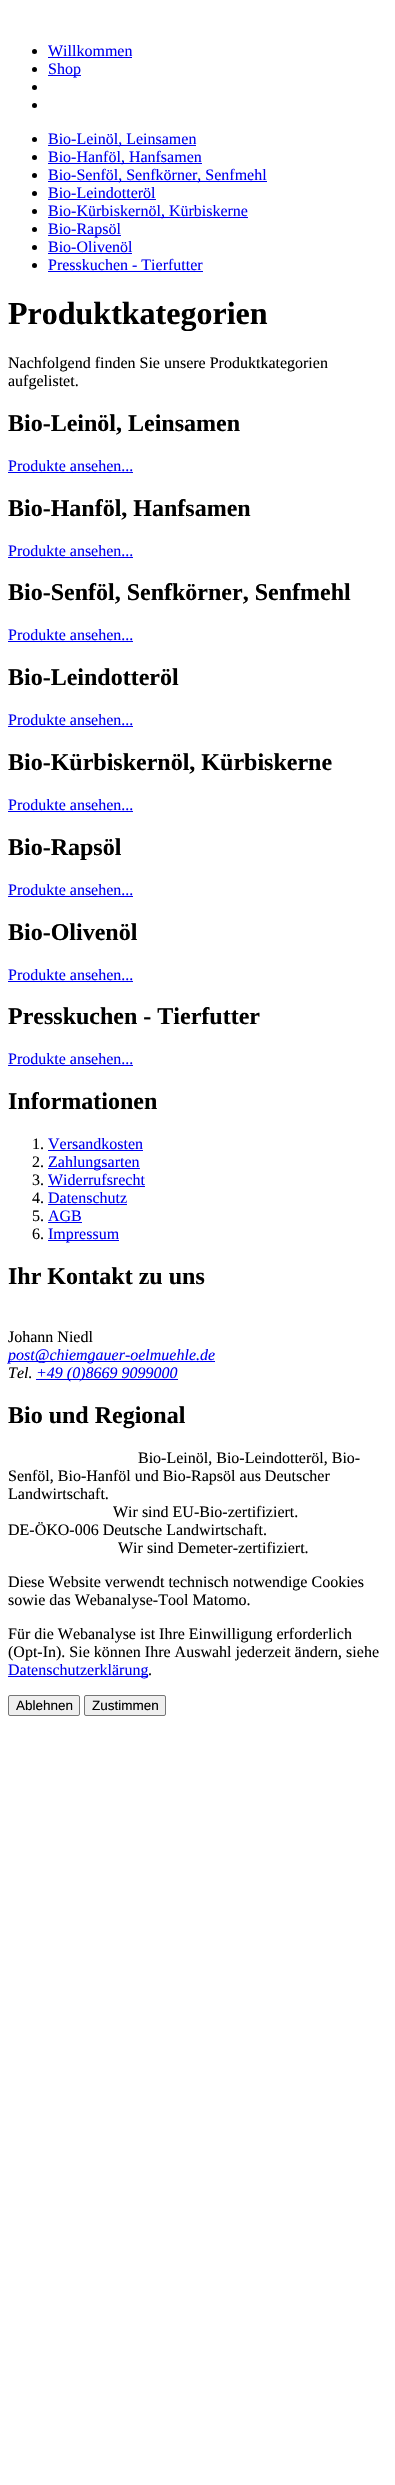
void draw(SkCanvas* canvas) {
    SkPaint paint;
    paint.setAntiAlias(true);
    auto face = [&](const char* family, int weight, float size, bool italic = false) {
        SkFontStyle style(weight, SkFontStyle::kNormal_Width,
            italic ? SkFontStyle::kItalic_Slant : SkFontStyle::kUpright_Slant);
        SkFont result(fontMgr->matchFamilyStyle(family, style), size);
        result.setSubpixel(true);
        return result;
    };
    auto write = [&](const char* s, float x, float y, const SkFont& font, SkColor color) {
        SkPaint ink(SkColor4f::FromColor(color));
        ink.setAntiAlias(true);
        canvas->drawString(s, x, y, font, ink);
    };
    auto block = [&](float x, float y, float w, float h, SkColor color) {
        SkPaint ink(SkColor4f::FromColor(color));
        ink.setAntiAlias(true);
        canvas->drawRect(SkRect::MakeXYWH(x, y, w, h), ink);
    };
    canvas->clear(SK_ColorWHITE);
    paint.setColor(SK_ColorBLACK);
    canvas->drawCircle(34.5f, 51.5f, 2.5f, paint);
    auto kFont1 = face("Liberation Serif", 400, 16);
    write("Willkommen", 48, 56, kFont1, SkColorSetRGB(0, 0, 238));
    block(48, 57, 84, 1, SkColorSetRGB(0, 0, 238));
    canvas->drawCircle(34.5f, 69.5f, 2.5f, paint);
    block(48, 75, 33, 1, SkColorSetRGB(0, 0, 238));
    write("Shop", 48, 74, kFont1, SkColorSetRGB(0, 0, 238));
    canvas->drawCircle(34.5f, 87.5f, 2.5f, paint);
    canvas->drawCircle(34.5f, 105.5f, 2.5f, paint);
    canvas->drawCircle(34.5f, 139.5f, 2.5f, paint);
    block(48, 145, 148, 1, SkColorSetRGB(0, 0, 238));
    write("Bio-Leinöl, Leinsamen", 48, 144, kFont1, SkColorSetRGB(0, 0, 238));
    canvas->drawCircle(34.5f, 157.5f, 2.5f, paint);
    block(48, 163, 154, 1, SkColorSetRGB(0, 0, 238));
    write("Bio-Hanföl, Hanfsamen", 48, 162, kFont1, SkColorSetRGB(0, 0, 238));
    canvas->drawCircle(34.5f, 175.5f, 2.5f, paint);
    block(48, 181, 219, 1, SkColorSetRGB(0, 0, 238));
    write("Bio-Senföl, Senfkörner, Senfmehl", 48, 180, kFont1, SkColorSetRGB(0, 0, 238));
    canvas->drawCircle(34.5f, 193.5f, 2.5f, paint);
    write("Bio-Leindotteröl", 48, 198, kFont1, SkColorSetRGB(0, 0, 238));
    block(48, 199, 108, 1, SkColorSetRGB(0, 0, 238));
    canvas->drawCircle(34.5f, 211.5f, 2.5f, paint);
    block(48, 217, 200, 1, SkColorSetRGB(0, 0, 238));
    write("Bio-Kürbiskernöl, Kürbiskerne", 48, 216, kFont1, SkColorSetRGB(0, 0, 238));
    canvas->drawCircle(34.5f, 229.5f, 2.5f, paint);
    block(48, 235, 73, 1, SkColorSetRGB(0, 0, 238));
    write("Bio-Rapsöl", 48, 234, kFont1, SkColorSetRGB(0, 0, 238));
    canvas->drawCircle(34.5f, 247.5f, 2.5f, paint);
    write("Bio-Olivenöl", 48, 252, kFont1, SkColorSetRGB(0, 0, 238));
    block(48, 253, 84, 1, SkColorSetRGB(0, 0, 238));
    canvas->drawCircle(34.5f, 265.5f, 2.5f, paint);
    write("Presskuchen - Tierfutter", 48, 270, kFont1, SkColorSetRGB(0, 0, 238));
    block(48, 271, 155, 1, SkColorSetRGB(0, 0, 238));
    auto kFont2 = face("Liberation Serif", 700, 32);
    write("Produktkategorien", 8, 324, kFont2, SK_ColorBLACK);
    write("Nachfolgend finden Sie unsere Produktkategorien", 8, 368, kFont1, SK_ColorBLACK);
    write("aufgelistet.", 8, 386, kFont1, SK_ColorBLACK);
    auto kFont3 = face("Liberation Serif", 700, 24);
    write("Bio-Leinöl, Leinsamen", 8, 431, kFont3, SK_ColorBLACK);
    write("Produkte ansehen...", 8, 471, kFont1, SkColorSetRGB(0, 0, 238));
    block(8, 472, 125, 1, SkColorSetRGB(0, 0, 238));
    write("Bio-Hanföl, Hanfsamen", 8, 516, kFont3, SK_ColorBLACK);
    write("Produkte ansehen...", 8, 556, kFont1, SkColorSetRGB(0, 0, 238));
    block(8, 557, 125, 1, SkColorSetRGB(0, 0, 238));
    write("Bio-Senföl, Senfkörner, Senfmehl", 8, 600, kFont3, SK_ColorBLACK);
    write("Produkte ansehen...", 8, 640, kFont1, SkColorSetRGB(0, 0, 238));
    block(8, 641, 125, 1, SkColorSetRGB(0, 0, 238));
    write("Bio-Leindotteröl", 8, 685, kFont3, SK_ColorBLACK);
    write("Produkte ansehen...", 8, 725, kFont1, SkColorSetRGB(0, 0, 238));
    block(8, 726, 125, 1, SkColorSetRGB(0, 0, 238));
    write("Bio-Kürbiskernöl, Kürbiskerne", 8, 770, kFont3, SK_ColorBLACK);
    write("Produkte ansehen...", 8, 810, kFont1, SkColorSetRGB(0, 0, 238));
    block(8, 811, 125, 1, SkColorSetRGB(0, 0, 238));
    write("Bio-Rapsöl", 8, 855, kFont3, SK_ColorBLACK);
    write("Produkte ansehen...", 8, 895, kFont1, SkColorSetRGB(0, 0, 238));
    block(8, 896, 125, 1, SkColorSetRGB(0, 0, 238));
    write("Bio-Olivenöl", 8, 940, kFont3, SK_ColorBLACK);
    write("Produkte ansehen...", 8, 980, kFont1, SkColorSetRGB(0, 0, 238));
    block(8, 981, 125, 1, SkColorSetRGB(0, 0, 238));
    write("Presskuchen - Tierfutter", 8, 1024, kFont3, SK_ColorBLACK);
    write("Produkte ansehen...", 8, 1064, kFont1, SkColorSetRGB(0, 0, 238));
    block(8, 1065, 125, 1, SkColorSetRGB(0, 0, 238));
    write("Informationen", 8, 1109, kFont3, SK_ColorBLACK);
    write("1.", 32, 1149, kFont1, SK_ColorBLACK);
    write("Versandkosten", 48, 1149, kFont1, SkColorSetRGB(0, 0, 238));
    block(48, 1150, 95, 1, SkColorSetRGB(0, 0, 238));
    write("2.", 32, 1167, kFont1, SK_ColorBLACK);
    block(48, 1168, 92, 1, SkColorSetRGB(0, 0, 238));
    write("Zahlungsarten", 48, 1167, kFont1, SkColorSetRGB(0, 0, 238));
    write("3.", 32, 1185, kFont1, SK_ColorBLACK);
    write("Widerrufsrecht", 48, 1185, kFont1, SkColorSetRGB(0, 0, 238));
    block(48, 1186, 97, 1, SkColorSetRGB(0, 0, 238));
    write("4.", 32, 1203, kFont1, SK_ColorBLACK);
    write("Datenschutz", 48, 1203, kFont1, SkColorSetRGB(0, 0, 238));
    block(48, 1204, 79, 1, SkColorSetRGB(0, 0, 238));
    write("5.", 32, 1221, kFont1, SK_ColorBLACK);
    write("AGB", 48, 1221, kFont1, SkColorSetRGB(0, 0, 238));
    block(48, 1222, 34, 1, SkColorSetRGB(0, 0, 238));
    write("6.", 32, 1239, kFont1, SK_ColorBLACK);
    block(48, 1240, 71, 1, SkColorSetRGB(0, 0, 238));
    write("Impressum", 48, 1239, kFont1, SkColorSetRGB(0, 0, 238));
    write("Ihr Kontakt zu uns", 8, 1284, kFont3, SK_ColorBLACK);
    write("Johann Niedl", 8, 1342, kFont1, SK_ColorBLACK);
    block(8, 1361, 207, 1, SkColorSetRGB(0, 0, 238));
    auto kFont4 = face("Liberation Serif", 400, 16, true);
    write("post@chiemgauer-oelmuehle.de", 8, 1360, kFont4, SkColorSetRGB(0, 0, 238));
    write("Tel.", 8, 1378, kFont4, SK_ColorBLACK);
    block(36, 1379, 142, 1, SkColorSetRGB(0, 0, 238));
    write("+49 (0)8669 9099000", 36, 1378, kFont4, SkColorSetRGB(0, 0, 238));
    write("Bio und Regional", 8, 1423, kFont3, SK_ColorBLACK);
    write("Bio-Leinöl, Bio-Leindotteröl, Bio-", 138, 1463, kFont1, SK_ColorBLACK);
    write("Senföl, Bio-Hanföl und Bio-Rapsöl aus Deutscher", 8, 1481, kFont1, SK_ColorBLACK);
    write("Landwirtschaft.", 8, 1499, kFont1, SK_ColorBLACK);
    write("Wir sind EU-Bio-zertifiziert.", 113, 1517, kFont1, SK_ColorBLACK);
    write("DE-ÖKO-006 Deutsche Landwirtschaft.", 8, 1535, kFont1, SK_ColorBLACK);
    write("Wir sind Demeter-zertifiziert.", 118, 1553, kFont1, SK_ColorBLACK);
    write("Diese Website verwendt technisch notwendige Cookies", 8, 1587, kFont1, SK_ColorBLACK);
    write("sowie das Webanalyse-Tool Matomo.", 8, 1605, kFont1, SK_ColorBLACK);
    write("Für die Webanalyse ist Ihre Einwilligung erforderlich", 8, 1639, kFont1, SK_ColorBLACK);
    write("(Opt-In). Sie können Ihre Auswahl jederzeit ändern, siehe", 8, 1657, kFont1, SK_ColorBLACK);
    block(8, 1676, 140, 1, SkColorSetRGB(0, 0, 238));
    write("Datenschutzerklärung", 8, 1675, kFont1, SkColorSetRGB(0, 0, 238));
    write(".", 148, 1675, kFont1, SK_ColorBLACK);
    paint.setColor(SkColorSetRGB(239, 239, 239));
    canvas->drawRoundRect(SkRect::MakeXYWH(8.5f, 1695.5f, 71, 20), 1.5f, 1.5f, paint);
    paint.setStyle(SkPaint::kStroke_Style);
    paint.setStrokeWidth(1);
    paint.setColor(SkColorSetRGB(118, 118, 118));
    canvas->drawRoundRect(SkRect::MakeXYWH(8.5f, 1695.5f, 71, 20), 1.5f, 1.5f, paint);
    auto kFont5 = face("Liberation Sans", 400, 13.5f);
    write("Ablehnen", 16, 1710, kFont5, SK_ColorBLACK);
    paint.setStyle(SkPaint::kFill_Style);
    paint.setColor(SkColorSetRGB(239, 239, 239));
    canvas->drawRoundRect(SkRect::MakeXYWH(84.5f, 1695.5f, 81, 20), 1.5f, 1.5f, paint);
    paint.setStyle(SkPaint::kStroke_Style);
    paint.setColor(SkColorSetRGB(118, 118, 118));
    canvas->drawRoundRect(SkRect::MakeXYWH(84.5f, 1695.5f, 81, 20), 1.5f, 1.5f, paint);
    write("Zustimmen", 92, 1710, kFont5, SK_ColorBLACK);
}
